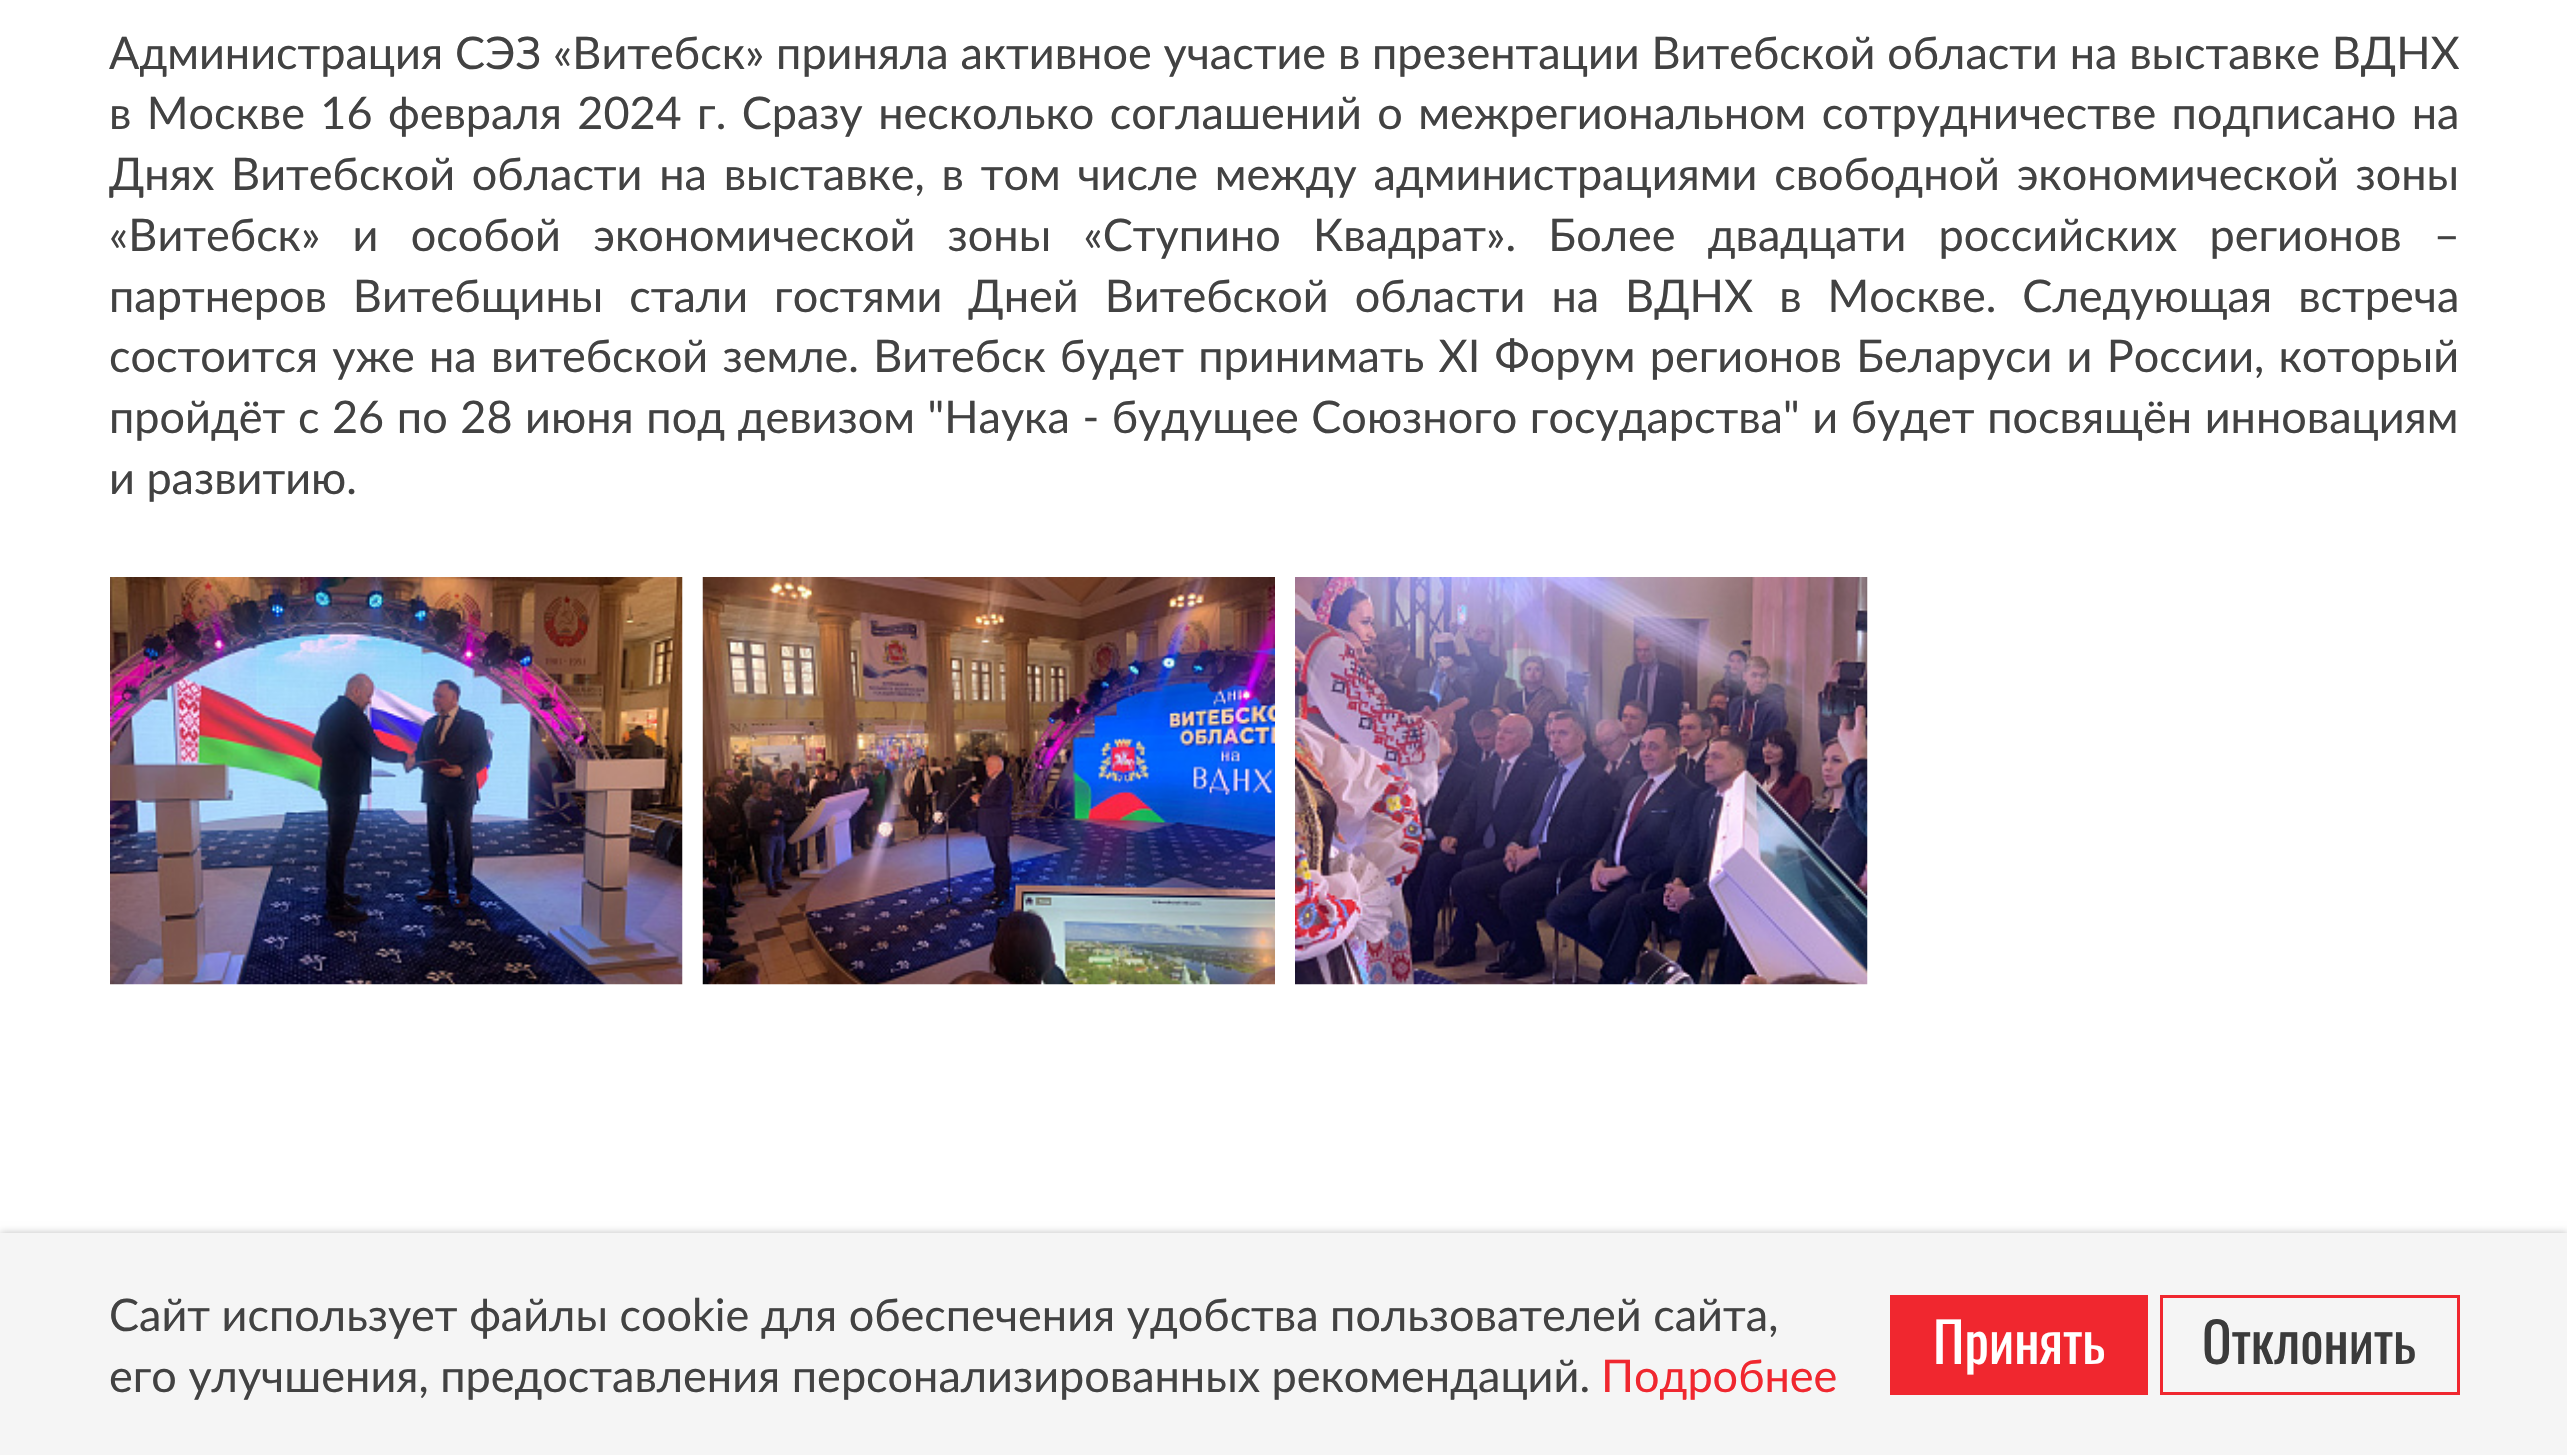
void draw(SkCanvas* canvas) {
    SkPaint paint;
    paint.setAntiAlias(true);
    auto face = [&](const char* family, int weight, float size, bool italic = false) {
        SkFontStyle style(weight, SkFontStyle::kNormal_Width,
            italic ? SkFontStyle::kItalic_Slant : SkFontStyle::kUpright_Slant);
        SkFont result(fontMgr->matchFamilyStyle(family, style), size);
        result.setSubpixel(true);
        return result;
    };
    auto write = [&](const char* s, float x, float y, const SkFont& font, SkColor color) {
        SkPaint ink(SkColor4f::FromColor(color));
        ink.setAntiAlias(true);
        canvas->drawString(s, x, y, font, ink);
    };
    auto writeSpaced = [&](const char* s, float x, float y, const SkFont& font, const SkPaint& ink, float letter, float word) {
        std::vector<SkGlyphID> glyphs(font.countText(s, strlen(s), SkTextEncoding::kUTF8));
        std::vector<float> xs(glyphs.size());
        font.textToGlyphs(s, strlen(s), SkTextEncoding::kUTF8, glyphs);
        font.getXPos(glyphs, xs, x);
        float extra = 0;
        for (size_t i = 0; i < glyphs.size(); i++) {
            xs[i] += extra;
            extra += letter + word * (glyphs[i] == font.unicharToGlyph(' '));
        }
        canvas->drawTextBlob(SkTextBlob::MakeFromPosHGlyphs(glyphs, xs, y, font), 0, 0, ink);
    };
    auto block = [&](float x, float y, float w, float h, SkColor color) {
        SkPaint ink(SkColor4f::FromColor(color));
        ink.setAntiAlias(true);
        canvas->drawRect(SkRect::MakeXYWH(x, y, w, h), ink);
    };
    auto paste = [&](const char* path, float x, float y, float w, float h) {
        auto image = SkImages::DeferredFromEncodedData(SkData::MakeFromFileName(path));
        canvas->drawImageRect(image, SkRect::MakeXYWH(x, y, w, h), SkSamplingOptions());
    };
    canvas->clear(SK_ColorWHITE);
    auto kFont1 = face("Lato", 400, 45);
    paint.setColor(SkColorSetRGB(66, 66, 66));
    writeSpaced("Администрация СЭЗ «Витебск» приняла активное участие в презентации Витебской области на выставке ВДНХ", 109, 69, kFont1, paint, 0, 0.25f);
    writeSpaced("в Москве 16 февраля 2024 г. Сразу несколько соглашений о межрегиональном сотрудничестве подписано на", 109, 129, kFont1, paint, 0, 3.9f);
    writeSpaced("Днях Витебской области на выставке, в том числе между администрациями свободной экономической зоны", 109, 190, kFont1, paint, 0, 5.25f);
    writeSpaced("«Витебск» и особой экономической зоны «Ступино Квадрат». Более двадцати российских регионов –", 109, 251, kFont1, paint, 0, 20.75f);
    writeSpaced("партнеров Витебщины стали гостями Дней Витебской области на ВДНХ в Москве. Следующая встреча", 109, 312, kFont1, paint, 0, 14.5f);
    writeSpaced("состоится уже на витебской земле. Витебск будет принимать XI Форум регионов Беларуси и России, который", 109, 372, kFont1, paint, 0, 2.75f);
    writeSpaced("пройдёт с 26 по 28 июня под девизом \"Наука - будущее Союзного государства\" и будет посвящён инновациям", 109, 433, kFont1, paint, 0, 1.1f);
    write("и развитию.", 109, 494, kFont1, SkColorSetRGB(66, 66, 66));
    paste("pic1.png", 110, 577, 573, 408);
    paste("pic2.png", 702, 577, 573, 408);
    paste("pic3.png", 1295, 577, 573, 408);
    paint.setColor(SkColorSetARGB(64, 0, 0, 0));
    paint.setMaskFilter(SkMaskFilter::MakeBlur(kNormal_SkBlurStyle, 4));
    canvas->drawRect(SkRect::MakeXYWH(0, 1233, 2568, 222), paint);
    paint.setMaskFilter(nullptr);
    block(0, 1233, 2567, 222, SkColorSetRGB(245, 245, 245));
    write("Сайт использует файлы cookie для обеспечения удобства пользователей сайта,", 109, 1331, kFont1, SkColorSetRGB(66, 66, 66));
    write("его улучшения, предоставления персонализированных рекомендаций.", 109, 1392, kFont1, SkColorSetRGB(66, 66, 66));
    write("Подробнее", 1601, 1392, kFont1, SkColorSetRGB(240, 39, 47));
    block(1890, 1295, 258, 100, SkColorSetRGB(240, 39, 47));
    auto kFont2 = face("Oswald", 400, 55);
    write("Принять", 1933, 1364, kFont2, SK_ColorWHITE);
    paint.setStyle(SkPaint::kStroke_Style);
    paint.setStrokeWidth(3);
    paint.setColor(SkColorSetRGB(240, 39, 47));
    canvas->drawRect(SkRect::MakeXYWH(2161.5f, 1296.5f, 297, 97), paint);
    write("Отклонить", 2202, 1364, kFont2, SkColorSetRGB(59, 59, 59));
}
